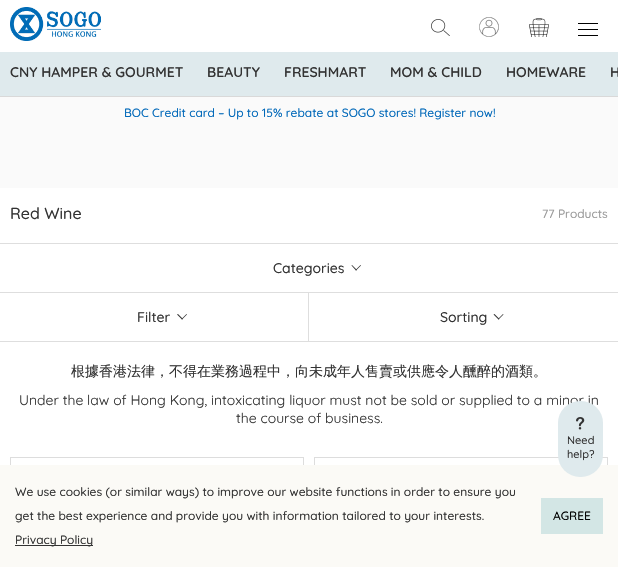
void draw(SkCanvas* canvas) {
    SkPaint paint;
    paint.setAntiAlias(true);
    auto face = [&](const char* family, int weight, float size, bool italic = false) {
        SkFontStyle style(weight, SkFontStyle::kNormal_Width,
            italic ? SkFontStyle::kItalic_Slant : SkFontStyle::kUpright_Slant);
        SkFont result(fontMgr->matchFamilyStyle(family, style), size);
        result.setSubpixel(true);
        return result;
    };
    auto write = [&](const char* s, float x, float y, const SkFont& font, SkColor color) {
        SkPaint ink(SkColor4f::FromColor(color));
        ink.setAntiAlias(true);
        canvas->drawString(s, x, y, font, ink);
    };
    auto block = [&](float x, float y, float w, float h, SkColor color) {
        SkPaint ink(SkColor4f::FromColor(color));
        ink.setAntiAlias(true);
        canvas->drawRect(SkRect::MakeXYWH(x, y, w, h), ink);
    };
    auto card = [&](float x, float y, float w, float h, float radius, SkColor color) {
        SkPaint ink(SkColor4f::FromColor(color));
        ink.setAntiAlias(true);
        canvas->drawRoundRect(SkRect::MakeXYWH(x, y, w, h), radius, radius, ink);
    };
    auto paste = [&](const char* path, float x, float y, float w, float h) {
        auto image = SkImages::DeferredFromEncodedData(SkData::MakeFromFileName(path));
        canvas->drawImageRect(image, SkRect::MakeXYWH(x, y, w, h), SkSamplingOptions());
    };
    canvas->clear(SK_ColorWHITE);
    paste("pic1.png", 10, 7, 91, 34);
    paste("pic2.png", 431, 19, 19, 17);
    paste("pic3.png", 479, 17, 20, 20);
    paste("pic4.png", 529, 18, 20, 19);
    block(578, 23, 20, 1, SK_ColorBLACK);
    block(578, 29, 20, 1, SK_ColorBLACK);
    block(578, 35, 20, 1, SK_ColorBLACK);
    block(0, 52, 618, 44, SkColorSetRGB(223, 234, 237));
    block(0, 96, 618, 1, SkColorSetRGB(217, 217, 217));
    auto kFont1 = face("Quicksand", 600, 14);
    write("CNY HAMPER & GOURMET", 10, 77, kFont1, SkColorSetRGB(51, 51, 51));
    write("BEAUTY", 207, 77, kFont1, SkColorSetRGB(51, 51, 51));
    write("FRESHMART", 284, 77, kFont1, SkColorSetRGB(51, 51, 51));
    write("MOM & CHILD", 390, 77, kFont1, SkColorSetRGB(51, 51, 51));
    write("HOMEWARE", 506, 77, kFont1, SkColorSetRGB(51, 51, 51));
    write("H", 610, 77, kFont1, SkColorSetRGB(51, 51, 51));
    block(0, 97, 618, 91, SkColorSetRGB(250, 250, 250));
    auto kFont2 = face("Quicksand", 500, 12);
    write("BOC Credit card – Up to 15% rebate at SOGO stores! Register now!", 124, 117, kFont2, SkColorSetRGB(0, 104, 185));
    auto kFont3 = face("Quicksand", 500, 16);
    write("Red Wine", 10, 219, kFont3, SkColorSetRGB(51, 51, 51));
    write("77 Products", 542, 218, kFont2, SkColorSetRGB(154, 154, 154));
    block(0, 243, 618, 1, SkColorSetRGB(222, 222, 222));
    block(0, 292, 618, 1, SkColorSetRGB(222, 222, 222));
    auto kFont4 = face("Quicksand", 500, 14);
    write("Categories", 273, 273, kFont4, SkColorSetRGB(51, 51, 51));
    paint.setColor(SkColorSetRGB(51, 51, 51));
    canvas->drawPath(SkPathBuilder().moveTo(360.5f, 265).lineTo(361, 265.5f).lineTo(356, 270.5f).lineTo(355.5f, 270).close().detach(), paint);
    canvas->drawPath(SkPathBuilder().moveTo(352, 265).lineTo(357, 270).lineTo(356, 270.5f).lineTo(351.5f, 265.5f).close().detach(), paint);
    block(308, 293, 1, 49, SkColorSetRGB(222, 222, 222));
    block(0, 341, 618, 1, SkColorSetRGB(222, 222, 222));
    write("Filter", 137, 322, kFont4, SkColorSetRGB(51, 51, 51));
    canvas->drawPath(SkPathBuilder().moveTo(186.5f, 314).lineTo(187, 314.5f).lineTo(182, 319.5f).lineTo(181.5f, 319).close().detach(), paint);
    canvas->drawPath(SkPathBuilder().moveTo(178, 314).lineTo(183, 319).lineTo(182, 319.5f).lineTo(177, 314.5f).close().detach(), paint);
    write("Sorting", 440, 322, kFont4, SkColorSetRGB(51, 51, 51));
    canvas->drawPath(SkPathBuilder().moveTo(503, 314).lineTo(503.5f, 314.5f).lineTo(498.5f, 319.5f).lineTo(498, 319).close().detach(), paint);
    canvas->drawPath(SkPathBuilder().moveTo(494.5f, 314).lineTo(499.5f, 319).lineTo(498.5f, 319.5f).lineTo(493.5f, 314.5f).close().detach(), paint);
    auto kFont5 = face("WenQuanYi Zen Hei", 500, 14);
    write("根據香港法律，不得在業務過程中，向未成年人售賣或供應令人醺醉的酒類。", 71, 376, kFont5, SkColorSetRGB(51, 51, 51));
    auto kFont6 = face("Quicksand", 400, 14);
    write("Under the law of Hong Kong, intoxicating liquor must not be sold or supplied to a minor in", 19, 405, kFont6, SkColorSetRGB(51, 51, 51));
    write("the course of business.", 236, 423, kFont6, SkColorSetRGB(51, 51, 51));
    paint.setStyle(SkPaint::kStroke_Style);
    paint.setStrokeWidth(1);
    paint.setColor(SkColorSetRGB(221, 221, 221));
    canvas->drawRect(SkRect::MakeXYWH(10.5f, 457.5f, 293, 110), paint);
    canvas->drawRect(SkRect::MakeXYWH(314.5f, 457.5f, 293, 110), paint);
    block(0, 465, 618, 102, SkColorSetRGB(251, 250, 246));
    card(558, 401, 45, 76, 22, SkColorSetRGB(223, 234, 237));
    paste("pic5.png", 576, 417, 9, 13);
    auto kFont7 = face("Quicksand", 500, 11);
    write("Need", 567, 444, kFont7, SkColorSetRGB(51, 51, 51));
    write("help?", 567, 458, kFont7, SkColorSetRGB(51, 51, 51));
    write("We use cookies (or similar ways) to improve our website functions in order to ensure you", 15, 496, kFont2, SkColorSetRGB(51, 51, 51));
    write("get the best experience and provide you with information tailored to your interests.", 15, 520, kFont2, SkColorSetRGB(51, 51, 51));
    block(15, 545, 78, 1, SkColorSetRGB(51, 51, 51));
    write("Privacy Policy", 15, 544, kFont2, SkColorSetRGB(51, 51, 51));
    block(541, 498, 62, 36, SkColorSetRGB(211, 230, 229));
    write("AGREE", 553, 520, kFont2, SK_ColorBLACK);
}
